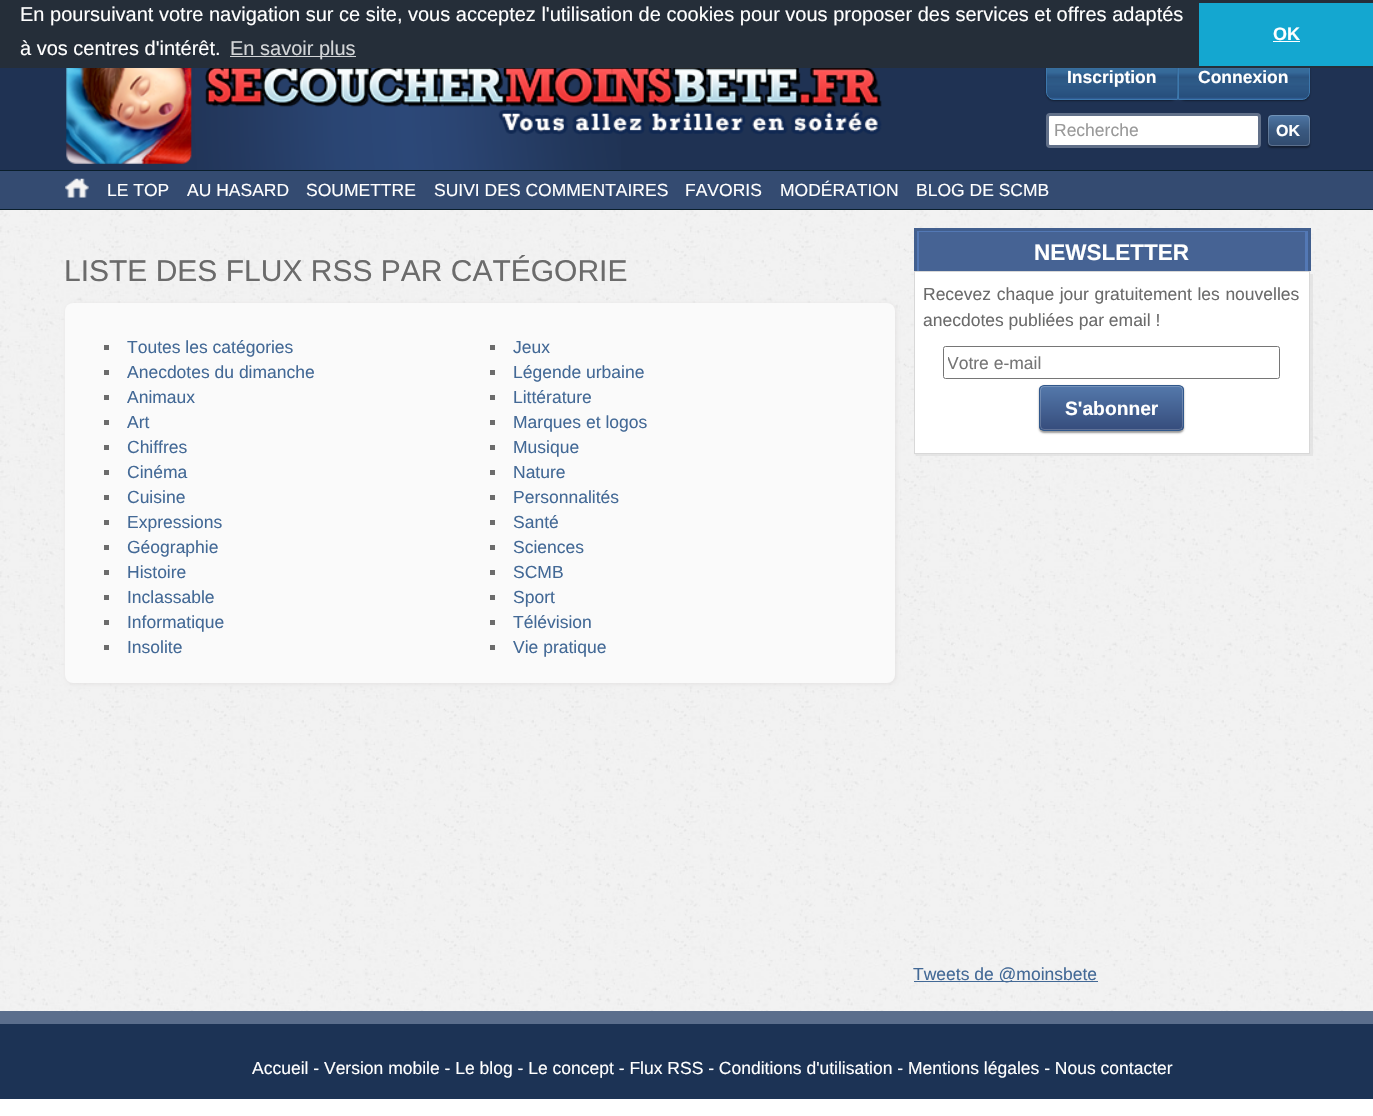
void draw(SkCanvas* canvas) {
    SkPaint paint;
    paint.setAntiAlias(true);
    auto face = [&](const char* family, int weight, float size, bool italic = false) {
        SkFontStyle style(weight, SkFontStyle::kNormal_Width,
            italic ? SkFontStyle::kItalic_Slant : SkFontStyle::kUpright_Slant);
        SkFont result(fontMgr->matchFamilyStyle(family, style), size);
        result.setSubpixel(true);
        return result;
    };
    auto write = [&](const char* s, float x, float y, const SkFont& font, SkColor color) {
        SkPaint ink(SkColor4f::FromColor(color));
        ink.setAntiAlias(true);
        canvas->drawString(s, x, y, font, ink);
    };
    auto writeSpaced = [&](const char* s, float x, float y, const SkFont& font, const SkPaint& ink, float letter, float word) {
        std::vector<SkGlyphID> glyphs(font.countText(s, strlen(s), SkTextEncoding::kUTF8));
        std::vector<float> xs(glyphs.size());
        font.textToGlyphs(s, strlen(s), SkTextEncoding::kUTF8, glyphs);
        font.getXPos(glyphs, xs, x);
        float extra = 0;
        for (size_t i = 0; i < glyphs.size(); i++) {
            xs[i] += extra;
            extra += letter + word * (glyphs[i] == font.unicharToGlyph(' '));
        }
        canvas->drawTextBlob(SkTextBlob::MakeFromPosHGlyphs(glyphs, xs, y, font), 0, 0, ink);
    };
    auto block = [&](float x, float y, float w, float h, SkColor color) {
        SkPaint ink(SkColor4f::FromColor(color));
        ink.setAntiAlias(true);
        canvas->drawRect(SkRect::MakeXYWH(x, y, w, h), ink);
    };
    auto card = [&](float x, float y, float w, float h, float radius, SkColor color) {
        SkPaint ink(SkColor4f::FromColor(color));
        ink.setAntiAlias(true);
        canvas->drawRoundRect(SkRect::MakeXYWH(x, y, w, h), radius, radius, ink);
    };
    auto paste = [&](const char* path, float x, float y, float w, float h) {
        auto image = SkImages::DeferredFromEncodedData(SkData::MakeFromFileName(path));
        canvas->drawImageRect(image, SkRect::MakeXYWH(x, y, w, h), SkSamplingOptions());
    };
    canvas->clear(SK_ColorWHITE);
    block(0, 68, 1373, 102, SkColorSetRGB(31, 50, 83));
    paint.setColor(SkColorSetARGB(102, 0, 0, 0));
    paint.setMaskFilter(SkMaskFilter::MakeBlur(kNormal_SkBlurStyle, 1));
    canvas->drawRoundRect(SkRect::MakeXYWH(1046, 54, 132, 47), 8, 8, paint);
    paint.setMaskFilter(nullptr);
    {
        const SkColor colors[] = {SkColorSetRGB(13, 75, 143), SkColorSetRGB(82, 163, 198), SkColorSetRGB(63, 124, 172), SkColorSetRGB(56, 111, 159), SkColorSetRGB(54, 107, 154), SkColorSetRGB(54, 106, 153), SkColorSetRGB(52, 102, 150), SkColorSetRGB(44, 88, 134), SkColorSetRGB(43, 84, 129), SkColorSetRGB(44, 88, 132), SkColorSetRGB(46, 91, 137), SkColorSetRGB(44, 86, 132), SkColorSetRGB(44, 87, 133), SkColorSetRGB(39, 78, 124), SkColorSetRGB(47, 92, 147), SkColorSetRGB(25, 59, 117)};
        const float stops[] = {0, 0.03f, 0.06f, 0.33f, 0.36f, 0.42f, 0.44f, 0.5f, 0.53f, 0.56f, 0.67f, 0.72f, 0.75f, 0.94f, 0.97f, 1};
        const SkPoint ends[] = {{1112, 52}, {1112, 100}};
        paint.setShader(SkGradientShader::MakeLinear(ends, colors, stops, 16, SkTileMode::kClamp));
        paint.setAlpha(255);
    }
    canvas->drawPath(SkPathBuilder().moveTo(1054, 53.5f).lineTo(1177.5f, 53.5f).lineTo(1177.5f, 99.5f).lineTo(1054, 99.5f).cubicTo(1050, 99.5f, 1046.5f, 96, 1046.5f, 92).lineTo(1046.5f, 61).cubicTo(1046.5f, 57, 1050, 53.5f, 1054, 53.5f).close().detach(), paint);
    paint.setStyle(SkPaint::kStroke_Style);
    paint.setStrokeWidth(1);
    paint.setShader(nullptr);
    paint.setColor(SkColorSetRGB(61, 120, 173));
    canvas->drawPath(SkPathBuilder().moveTo(1054, 53.5f).lineTo(1177.5f, 53.5f).lineTo(1177.5f, 99.5f).lineTo(1054, 99.5f).cubicTo(1050, 99.5f, 1046.5f, 96, 1046.5f, 92).lineTo(1046.5f, 61).cubicTo(1046.5f, 57, 1050, 53.5f, 1054, 53.5f).close().detach(), paint);
    paint.setStyle(SkPaint::kFill_Style);
    paint.setColor(SkColorSetARGB(102, 0, 0, 0));
    paint.setMaskFilter(SkMaskFilter::MakeBlur(kNormal_SkBlurStyle, 1));
    canvas->drawRoundRect(SkRect::MakeXYWH(1178, 54, 132, 47), 8, 8, paint);
    paint.setMaskFilter(nullptr);
    {
        const SkColor colors[] = {SkColorSetRGB(13, 75, 143), SkColorSetRGB(82, 163, 198), SkColorSetRGB(63, 124, 172), SkColorSetRGB(56, 111, 159), SkColorSetRGB(54, 107, 154), SkColorSetRGB(54, 106, 153), SkColorSetRGB(52, 102, 150), SkColorSetRGB(44, 88, 134), SkColorSetRGB(43, 84, 129), SkColorSetRGB(44, 88, 132), SkColorSetRGB(46, 91, 137), SkColorSetRGB(44, 86, 132), SkColorSetRGB(44, 87, 133), SkColorSetRGB(39, 78, 124), SkColorSetRGB(47, 92, 147), SkColorSetRGB(25, 59, 117)};
        const float stops[] = {0, 0.03f, 0.06f, 0.33f, 0.36f, 0.42f, 0.44f, 0.5f, 0.53f, 0.56f, 0.67f, 0.72f, 0.75f, 0.94f, 0.97f, 1};
        const SkPoint ends[] = {{1244, 52}, {1244, 100}};
        paint.setShader(SkGradientShader::MakeLinear(ends, colors, stops, 16, SkTileMode::kClamp));
        paint.setAlpha(255);
    }
    canvas->drawPath(SkPathBuilder().moveTo(1178.5f, 53.5f).lineTo(1302, 53.5f).cubicTo(1306, 53.5f, 1309.5f, 57, 1309.5f, 61).lineTo(1309.5f, 92).cubicTo(1309.5f, 96, 1306, 99.5f, 1302, 99.5f).lineTo(1178.5f, 99.5f).close().detach(), paint);
    paint.setStyle(SkPaint::kStroke_Style);
    paint.setShader(nullptr);
    paint.setColor(SkColorSetRGB(61, 120, 173));
    canvas->drawPath(SkPathBuilder().moveTo(1178.5f, 53.5f).lineTo(1302, 53.5f).cubicTo(1306, 53.5f, 1309.5f, 57, 1309.5f, 61).lineTo(1309.5f, 92).cubicTo(1309.5f, 96, 1306, 99.5f, 1302, 99.5f).lineTo(1178.5f, 99.5f).close().detach(), paint);
    block(0, 0, 1373, 68, SkColorSetRGB(37, 46, 57));
    auto kFont1 = face("Liberation Sans", 400, 20);
    write("En poursuivant votre navigation sur ce site, vous acceptez l'utilisation de cookies pour vous proposer des services et offres adaptés", 20, 21, kFont1, SK_ColorWHITE);
    write("à vos centres d'intérêt.", 20, 55, kFont1, SK_ColorWHITE);
    block(230, 56, 126, 1, SkColorSetRGB(211, 213, 215));
    write("En savoir plus", 230, 55, kFont1, SkColorSetRGB(211, 213, 215));
    block(1199, 3, 174, 63, SkColorSetRGB(20, 167, 208));
    auto kFont2 = face("Liberation Sans", 700, 18);
    write("OK", 1273, 40, kFont2, SK_ColorWHITE);
    block(1273, 41, 27, 1, SK_ColorWHITE);
    paste("pic1.png", 0, 210, 1373, 801);
    paint.setStyle(SkPaint::kFill_Style);
    {
        const SkColor colors[] = {SkColorSetRGB(31, 50, 83), SkColorSetRGB(31, 50, 83), SkColorSetRGB(34, 55, 91), SkColorSetRGB(43, 69, 115), SkColorSetRGB(44, 72, 120), SkColorSetRGB(42, 69, 115), SkColorSetRGB(36, 57, 95), SkColorSetRGB(31, 50, 84), SkColorSetRGB(31, 50, 83)};
        const float stops[] = {0, 0.37f, 0.44f, 0.57f, 0.62f, 0.7f, 0.81f, 0.9f, 1};
        paint.setShader(SkGradientShader::MakeRadial({969, 101}, 906, colors, stops, 9, SkTileMode::kClamp));
        paint.setAlpha(255);
    }
    canvas->drawRect(SkRect::MakeXYWH(163, 68, 458, 102), paint);
    paste("pic2.png", 66, 68, 816, 96);
    auto kFont3 = face("Liberation Sans", 700, 17.5f);
    write("Inscription", 1067, 83, kFont3, SK_ColorWHITE);
    write("Connexion", 1198, 83, kFont3, SK_ColorWHITE);
    paint.setShader(nullptr);
    paint.setColor(SK_ColorWHITE);
    canvas->drawRoundRect(SkRect::MakeXYWH(1047.5f, 114.5f, 212, 32), 2.5f, 2.5f, paint);
    paint.setStyle(SkPaint::kStroke_Style);
    paint.setStrokeWidth(3);
    paint.setColor(SkColorSetRGB(97, 112, 137));
    canvas->drawRoundRect(SkRect::MakeXYWH(1047.5f, 114.5f, 212, 32), 2.5f, 2.5f, paint);
    auto kFont4 = face("Liberation Sans", 400, 17.5f);
    write("Recherche", 1054, 136, kFont4, SkColorSetRGB(153, 153, 153));
    paint.setStyle(SkPaint::kFill_Style);
    paint.setColor(SkColorSetARGB(102, 0, 0, 0));
    paint.setMaskFilter(SkMaskFilter::MakeBlur(kNormal_SkBlurStyle, 1));
    canvas->drawRoundRect(SkRect::MakeXYWH(1268, 116, 42, 32), 4, 4, paint);
    paint.setMaskFilter(nullptr);
    {
        const SkColor colors[] = {SkColorSetRGB(78, 119, 165), SkColorSetRGB(58, 89, 128), SkColorSetRGB(49, 75, 110)};
        const float stops[] = {0, 0.5f, 1};
        const SkPoint ends[] = {{1289, 115}, {1289, 146}};
        paint.setShader(SkGradientShader::MakeLinear(ends, colors, stops, 3, SkTileMode::kClamp));
        paint.setAlpha(255);
    }
    canvas->drawRoundRect(SkRect::MakeXYWH(1268, 115, 42, 31), 4, 4, paint);
    paint.setStyle(SkPaint::kStroke_Style);
    paint.setStrokeWidth(1);
    paint.setShader(nullptr);
    paint.setColor(SkColorSetARGB(51, 255, 255, 255));
    canvas->drawRoundRect(SkRect::MakeXYWH(1268.5f, 115.5f, 41, 30), 3.5f, 3.5f, paint);
    auto kFont5 = face("Liberation Sans", 700, 16);
    write("OK", 1276, 136, kFont5, SK_ColorWHITE);
    block(0, 171, 1373, 38, SkColorSetRGB(52, 75, 113));
    block(0, 170, 1373, 1, SkColorSetRGB(10, 30, 43));
    block(0, 209, 1373, 1, SkColorSetRGB(10, 30, 43));
    paste("pic3.png", 65, 178, 24, 20);
    write("LE TOP", 107, 196, kFont4, SK_ColorWHITE);
    write("AU HASARD", 187, 196, kFont4, SK_ColorWHITE);
    write("SOUMETTRE", 306, 196, kFont4, SK_ColorWHITE);
    write("SUIVI DES COMMENTAIRES", 434, 196, kFont4, SK_ColorWHITE);
    write("FAVORIS", 685, 196, kFont4, SK_ColorWHITE);
    write("MODÉRATION", 780, 196, kFont4, SK_ColorWHITE);
    write("BLOG DE SCMB", 916, 196, kFont4, SK_ColorWHITE);
    auto kFont6 = face("Liberation Sans", 400, 30);
    write("LISTE DES FLUX RSS PAR CATÉGORIE", 64, 281, kFont6, SkColorSetRGB(107, 107, 107));
    paint.setStyle(SkPaint::kFill_Style);
    paint.setColor(SkColorSetRGB(227, 225, 225));
    paint.setMaskFilter(SkMaskFilter::MakeBlur(kNormal_SkBlurStyle, 2));
    canvas->drawRoundRect(SkRect::MakeXYWH(66, 304, 830, 380), 8, 8, paint);
    paint.setMaskFilter(nullptr);
    card(65, 303, 830, 380, 8, SkColorSetRGB(250, 250, 250));
    block(104, 345, 5, 5, SkColorSetRGB(107, 107, 107));
    write("Toutes les catégories", 127, 353, kFont4, SkColorSetRGB(67, 105, 150));
    block(490, 345, 5, 5, SkColorSetRGB(107, 107, 107));
    write("Jeux", 513, 353, kFont4, SkColorSetRGB(67, 105, 150));
    block(104, 370, 5, 5, SkColorSetRGB(107, 107, 107));
    write("Anecdotes du dimanche", 127, 378, kFont4, SkColorSetRGB(67, 105, 150));
    block(490, 370, 5, 5, SkColorSetRGB(107, 107, 107));
    write("Légende urbaine", 513, 378, kFont4, SkColorSetRGB(67, 105, 150));
    block(104, 395, 5, 5, SkColorSetRGB(107, 107, 107));
    write("Animaux", 127, 403, kFont4, SkColorSetRGB(67, 105, 150));
    block(490, 395, 5, 5, SkColorSetRGB(107, 107, 107));
    write("Littérature", 513, 403, kFont4, SkColorSetRGB(67, 105, 150));
    block(104, 420, 5, 5, SkColorSetRGB(107, 107, 107));
    write("Art", 127, 428, kFont4, SkColorSetRGB(67, 105, 150));
    block(490, 420, 5, 5, SkColorSetRGB(107, 107, 107));
    write("Marques et logos", 513, 428, kFont4, SkColorSetRGB(67, 105, 150));
    block(104, 445, 5, 5, SkColorSetRGB(107, 107, 107));
    write("Chiffres", 127, 453, kFont4, SkColorSetRGB(67, 105, 150));
    block(490, 445, 5, 5, SkColorSetRGB(107, 107, 107));
    write("Musique", 513, 453, kFont4, SkColorSetRGB(67, 105, 150));
    block(104, 470, 5, 5, SkColorSetRGB(107, 107, 107));
    write("Cinéma", 127, 478, kFont4, SkColorSetRGB(67, 105, 150));
    block(490, 470, 5, 5, SkColorSetRGB(107, 107, 107));
    write("Nature", 513, 478, kFont4, SkColorSetRGB(67, 105, 150));
    block(104, 495, 5, 5, SkColorSetRGB(107, 107, 107));
    write("Cuisine", 127, 503, kFont4, SkColorSetRGB(67, 105, 150));
    block(490, 495, 5, 5, SkColorSetRGB(107, 107, 107));
    write("Personnalités", 513, 503, kFont4, SkColorSetRGB(67, 105, 150));
    block(104, 520, 5, 5, SkColorSetRGB(107, 107, 107));
    write("Expressions", 127, 528, kFont4, SkColorSetRGB(67, 105, 150));
    block(490, 520, 5, 5, SkColorSetRGB(107, 107, 107));
    write("Santé", 513, 528, kFont4, SkColorSetRGB(67, 105, 150));
    block(104, 545, 5, 5, SkColorSetRGB(107, 107, 107));
    write("Géographie", 127, 553, kFont4, SkColorSetRGB(67, 105, 150));
    block(490, 545, 5, 5, SkColorSetRGB(107, 107, 107));
    write("Sciences", 513, 553, kFont4, SkColorSetRGB(67, 105, 150));
    block(104, 570, 5, 5, SkColorSetRGB(107, 107, 107));
    write("Histoire", 127, 578, kFont4, SkColorSetRGB(67, 105, 150));
    block(490, 570, 5, 5, SkColorSetRGB(107, 107, 107));
    write("SCMB", 513, 578, kFont4, SkColorSetRGB(67, 105, 150));
    block(104, 595, 5, 5, SkColorSetRGB(107, 107, 107));
    write("Inclassable", 127, 603, kFont4, SkColorSetRGB(67, 105, 150));
    block(490, 595, 5, 5, SkColorSetRGB(107, 107, 107));
    write("Sport", 513, 603, kFont4, SkColorSetRGB(67, 105, 150));
    block(104, 620, 5, 5, SkColorSetRGB(107, 107, 107));
    write("Informatique", 127, 628, kFont4, SkColorSetRGB(67, 105, 150));
    block(490, 620, 5, 5, SkColorSetRGB(107, 107, 107));
    write("Télévision", 513, 628, kFont4, SkColorSetRGB(67, 105, 150));
    block(104, 645, 5, 5, SkColorSetRGB(107, 107, 107));
    write("Insolite", 127, 653, kFont4, SkColorSetRGB(67, 105, 150));
    block(490, 645, 5, 5, SkColorSetRGB(107, 107, 107));
    write("Vie pratique", 513, 653, kFont4, SkColorSetRGB(67, 105, 150));
    block(919, 232, 386, 39, SkColorSetRGB(70, 99, 148));
    block(1305, 230, 3, 41, SkColorSetRGB(83, 120, 181));
    canvas->save();
    canvas->clipRect(SkRect::MakeXYWH(916, 230, 392, 41));
    paint.setColor(SkColorSetRGB(83, 120, 181));
    canvas->drawPath(SkPathBuilder(SkPathFillType::kEvenOdd).moveTo(792, 106).lineTo(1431, 106).lineTo(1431, 395).lineTo(792, 395).close().moveTo(919, 232).lineTo(1310, 232).lineTo(1310, 274).lineTo(919, 274).close().detach(), paint);
    canvas->restore();
    block(914, 228, 396, 3, SkColorSetRGB(66, 95, 142));
    block(1308, 228, 3, 43, SkColorSetRGB(66, 95, 142));
    block(914, 228, 3, 43, SkColorSetRGB(66, 95, 142));
    auto kFont7 = face("Liberation Sans", 700, 22.5f);
    write("NEWSLETTER", 1034, 260, kFont7, SK_ColorWHITE);
    paint.setColor(SkColorSetARGB(166, 221, 221, 221));
    canvas->drawPath(SkPathBuilder().moveTo(916, 454).lineTo(916, 456).lineTo(1313, 456).lineTo(1313, 274).lineTo(1310, 274).lineTo(1310, 454).close().detach(), paint);
    paint.setColor(SK_ColorWHITE);
    canvas->drawRect(SkRect::MakeXYWH(914.5f, 271.5f, 395, 182), paint);
    paint.setStyle(SkPaint::kStroke_Style);
    paint.setColor(SkColorSetRGB(216, 216, 216));
    canvas->drawRect(SkRect::MakeXYWH(914.5f, 271.5f, 395, 182), paint);
    paint.setStyle(SkPaint::kFill_Style);
    paint.setColor(SkColorSetRGB(107, 107, 107));
    writeSpaced("Recevez chaque jour gratuitement les nouvelles", 923, 300, kFont4, paint, 0, 0.75f);
    write("anecdotes publiées par email !", 923, 326, kFont4, SkColorSetRGB(107, 107, 107));
    paint.setStyle(SkPaint::kStroke_Style);
    paint.setColor(SkColorSetRGB(118, 118, 118));
    canvas->drawRoundRect(SkRect::MakeXYWH(943.5f, 346.5f, 336, 32), 2, 2, paint);
    canvas->save();
    canvas->clipRect(SkRect::MakeXYWH(948, 353, 327, 20));
    write("Votre e-mail", 947, 369, kFont4, SkColorSetRGB(117, 117, 117));
    canvas->restore();
    paint.setStyle(SkPaint::kFill_Style);
    paint.setColor(SkColorSetARGB(102, 0, 0, 0));
    paint.setMaskFilter(SkMaskFilter::MakeBlur(kNormal_SkBlurStyle, 1));
    canvas->drawRoundRect(SkRect::MakeXYWH(1039, 386, 145, 47), 5, 5, paint);
    paint.setMaskFilter(nullptr);
    canvas->save();
    canvas->clipPath(SkPathBuilder().moveTo(1044, 385).lineTo(1179, 385).cubicTo(1182, 385, 1184, 387, 1184, 390).lineTo(1184, 426).cubicTo(1184, 429, 1182, 431, 1179, 431).lineTo(1044, 431).cubicTo(1041, 431, 1039, 429, 1039, 426).lineTo(1039, 390).cubicTo(1039, 387, 1041, 385, 1044, 385).close().detach(), true);
    {
        const SkColor colors[] = {SkColorSetRGB(84, 120, 171), SkColorSetRGB(54, 77, 124)};
        const float stops[] = {0, 1};
        const SkPoint ends[] = {{1111, 386}, {1111, 430}};
        paint.setShader(SkGradientShader::MakeLinear(ends, colors, stops, 2, SkTileMode::kClamp));
        paint.setAlpha(255);
    }
    canvas->drawRect(SkRect::MakeXYWH(1039, 386, 145, 44), paint);
    canvas->restore();
    paint.setStyle(SkPaint::kStroke_Style);
    paint.setShader(nullptr);
    paint.setColor(SkColorSetARGB(51, 255, 255, 255));
    canvas->drawRoundRect(SkRect::MakeXYWH(1040.5f, 386.5f, 142, 43), 3.5f, 3.5f, paint);
    paint.setColor(SkColorSetRGB(49, 88, 140));
    canvas->drawRoundRect(SkRect::MakeXYWH(1039.5f, 385.5f, 144, 45), 4.5f, 4.5f, paint);
    auto kFont8 = face("Liberation Sans", 700, 19.25f);
    write("S'abonner", 1065, 415, kFont8, SK_ColorWHITE);
    block(914, 981, 184, 1, SkColorSetRGB(67, 105, 150));
    write("Tweets de @moinsbete", 913, 980, kFont4, SkColorSetRGB(67, 105, 150));
    block(0, 1024, 1373, 75, SkColorSetRGB(28, 51, 85));
    block(0, 1011, 1373, 13, SkColorSetRGB(91, 110, 140));
    write("Accueil - Version mobile - Le blog - Le concept - Flux RSS - Conditions d'utilisation - Mentions légales - Nous contacter", 252, 1074, kFont4, SK_ColorWHITE);
}
